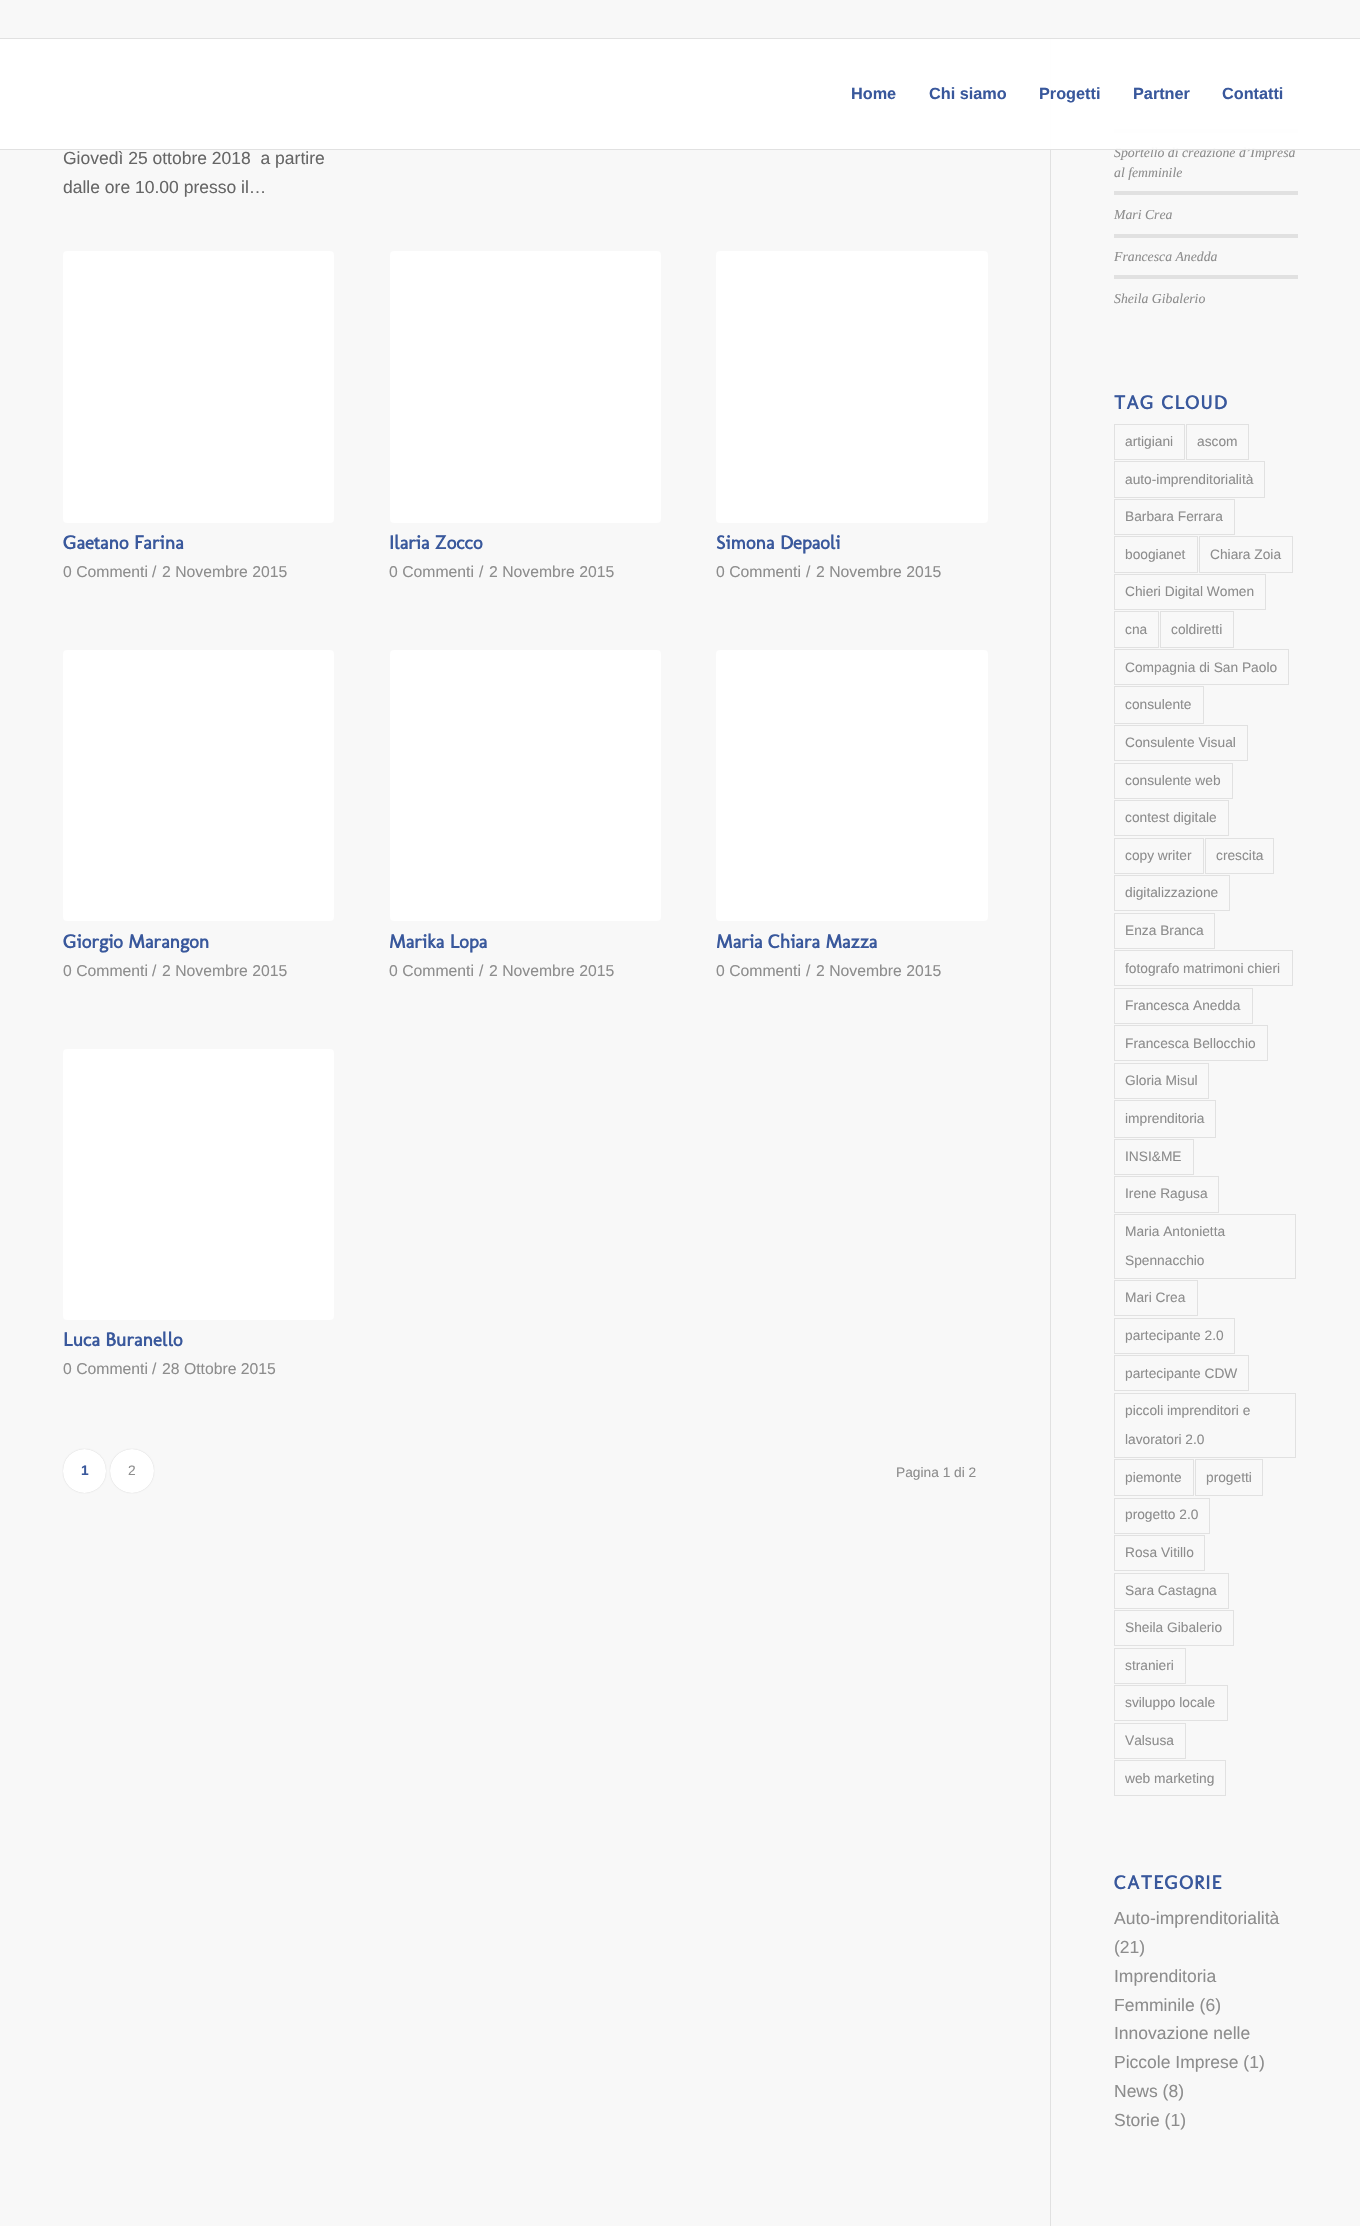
void draw(SkCanvas* canvas) {
    SkPaint paint;
    paint.setAntiAlias(true);
    auto face = [&](const char* family, int weight, float size, bool italic = false) {
        SkFontStyle style(weight, SkFontStyle::kNormal_Width,
            italic ? SkFontStyle::kItalic_Slant : SkFontStyle::kUpright_Slant);
        SkFont result(fontMgr->matchFamilyStyle(family, style), size);
        result.setSubpixel(true);
        return result;
    };
    auto write = [&](const char* s, float x, float y, const SkFont& font, SkColor color) {
        SkPaint ink(SkColor4f::FromColor(color));
        ink.setAntiAlias(true);
        canvas->drawString(s, x, y, font, ink);
    };
    auto writeSpaced = [&](const char* s, float x, float y, const SkFont& font, const SkPaint& ink, float letter, float word) {
        std::vector<SkGlyphID> glyphs(font.countText(s, strlen(s), SkTextEncoding::kUTF8));
        std::vector<float> xs(glyphs.size());
        font.textToGlyphs(s, strlen(s), SkTextEncoding::kUTF8, glyphs);
        font.getXPos(glyphs, xs, x);
        float extra = 0;
        for (size_t i = 0; i < glyphs.size(); i++) {
            xs[i] += extra;
            extra += letter + word * (glyphs[i] == font.unicharToGlyph(' '));
        }
        canvas->drawTextBlob(SkTextBlob::MakeFromPosHGlyphs(glyphs, xs, y, font), 0, 0, ink);
    };
    auto block = [&](float x, float y, float w, float h, SkColor color) {
        SkPaint ink(SkColor4f::FromColor(color));
        ink.setAntiAlias(true);
        canvas->drawRect(SkRect::MakeXYWH(x, y, w, h), ink);
    };
    auto card = [&](float x, float y, float w, float h, float radius, SkColor color) {
        SkPaint ink(SkColor4f::FromColor(color));
        ink.setAntiAlias(true);
        canvas->drawRoundRect(SkRect::MakeXYWH(x, y, w, h), radius, radius, ink);
    };
    canvas->clear(SkColorSetRGB(248, 248, 248));
    block(0, 38, 1360, 1, SkColorSetRGB(225, 225, 225));
    block(1050, 39, 1, 2187, SkColorSetRGB(225, 225, 225));
    block(1114, 129, 184, 4, SkColorSetRGB(225, 225, 225));
    auto kFont1 = face("Liberation Serif", 400, 13.75f, true);
    write("Sportello di creazione d’Impresa", 1114, 157, kFont1, SkColorSetRGB(141, 141, 141));
    block(0, 39, 1360, 110, SkColorSetARGB(242, 255, 255, 255));
    block(0, 149, 1360, 1, SkColorSetRGB(225, 225, 225));
    auto kFont2 = face("Liberation Sans", 700, 16.25f);
    write("Home", 851, 99, kFont2, SkColorSetRGB(57, 88, 156));
    write("Chi siamo", 929, 99, kFont2, SkColorSetRGB(57, 88, 156));
    write("Progetti", 1039, 99, kFont2, SkColorSetRGB(57, 88, 156));
    write("Partner", 1133, 99, kFont2, SkColorSetRGB(57, 88, 156));
    write("Contatti", 1222, 99, kFont2, SkColorSetRGB(57, 88, 156));
    auto kFont3 = face("Liberation Sans", 400, 17.5f);
    write("Giovedì 25 ottobre 2018  a partire", 63, 164, kFont3, SkColorSetRGB(102, 102, 102));
    write("dalle ore 10.00 presso il…", 63, 193, kFont3, SkColorSetRGB(102, 102, 102));
    card(63, 251, 271, 272, 4, SK_ColorWHITE);
    auto kFont4 = face("Molengo", 700, 19.25f);
    write("Gaetano Farina", 63, 549, kFont4, SkColorSetRGB(57, 88, 156));
    auto kFont5 = face("Liberation Sans", 400, 15.75f);
    write("0 Commenti", 63, 577, kFont5, SkColorSetRGB(141, 141, 141));
    write("/", 152, 577, kFont5, SkColorSetRGB(141, 141, 141));
    write("2 Novembre 2015", 162, 577, kFont5, SkColorSetRGB(141, 141, 141));
    card(390, 251, 271, 272, 4, SK_ColorWHITE);
    write("Ilaria Zocco", 389, 549, kFont4, SkColorSetRGB(57, 88, 156));
    write("0 Commenti", 389, 577, kFont5, SkColorSetRGB(141, 141, 141));
    write("/", 479, 577, kFont5, SkColorSetRGB(141, 141, 141));
    write("2 Novembre 2015", 489, 577, kFont5, SkColorSetRGB(141, 141, 141));
    card(716, 251, 272, 272, 4, SK_ColorWHITE);
    write("Simona Depaoli", 716, 549, kFont4, SkColorSetRGB(57, 88, 156));
    write("0 Commenti", 716, 577, kFont5, SkColorSetRGB(141, 141, 141));
    write("/", 806, 577, kFont5, SkColorSetRGB(141, 141, 141));
    write("2 Novembre 2015", 816, 577, kFont5, SkColorSetRGB(141, 141, 141));
    card(63, 650, 271, 271, 4, SK_ColorWHITE);
    write("Giorgio Marangon", 63, 948, kFont4, SkColorSetRGB(57, 88, 156));
    write("0 Commenti", 63, 976, kFont5, SkColorSetRGB(141, 141, 141));
    write("/", 152, 976, kFont5, SkColorSetRGB(141, 141, 141));
    write("2 Novembre 2015", 162, 976, kFont5, SkColorSetRGB(141, 141, 141));
    card(390, 650, 271, 271, 4, SK_ColorWHITE);
    write("Marika Lopa", 389, 948, kFont4, SkColorSetRGB(57, 88, 156));
    write("0 Commenti", 389, 976, kFont5, SkColorSetRGB(141, 141, 141));
    write("/", 479, 976, kFont5, SkColorSetRGB(141, 141, 141));
    write("2 Novembre 2015", 489, 976, kFont5, SkColorSetRGB(141, 141, 141));
    card(716, 650, 272, 271, 4, SK_ColorWHITE);
    write("Maria Chiara Mazza", 716, 948, kFont4, SkColorSetRGB(57, 88, 156));
    write("0 Commenti", 716, 976, kFont5, SkColorSetRGB(141, 141, 141));
    write("/", 806, 976, kFont5, SkColorSetRGB(141, 141, 141));
    write("2 Novembre 2015", 816, 976, kFont5, SkColorSetRGB(141, 141, 141));
    card(63, 1049, 271, 271, 4, SK_ColorWHITE);
    write("Luca Buranello", 63, 1346, kFont4, SkColorSetRGB(57, 88, 156));
    write("0 Commenti", 63, 1374, kFont5, SkColorSetRGB(141, 141, 141));
    write("/", 152, 1374, kFont5, SkColorSetRGB(141, 141, 141));
    write("28 Ottobre 2015", 162, 1374, kFont5, SkColorSetRGB(141, 141, 141));
    paint.setColor(SkColorSetARGB(51, 0, 0, 0));
    paint.setMaskFilter(SkMaskFilter::MakeBlur(kNormal_SkBlurStyle, 0.5f));
    canvas->drawRoundRect(SkRect::MakeXYWH(63, 1449, 43, 44), 21.5f, 21.5f, paint);
    paint.setMaskFilter(nullptr);
    card(63, 1449, 43, 44, 21.5f, SK_ColorWHITE);
    auto kFont6 = face("Liberation Sans", 700, 13.75f);
    write("1", 81, 1475, kFont6, SkColorSetRGB(57, 88, 156));
    paint.setMaskFilter(SkMaskFilter::MakeBlur(kNormal_SkBlurStyle, 0.5f));
    canvas->drawRoundRect(SkRect::MakeXYWH(110, 1449, 44, 44), 22, 22, paint);
    paint.setMaskFilter(nullptr);
    paint.setColor(SK_ColorWHITE);
    canvas->drawCircle(132, 1471, 22, paint);
    auto kFont7 = face("Liberation Sans", 400, 13.75f);
    write("2", 128, 1475, kFont7, SkColorSetRGB(141, 141, 141));
    write("Pagina 1 di 2", 896, 1477, kFont7, SkColorSetRGB(141, 141, 141));
    write("al femminile", 1114, 177, kFont1, SkColorSetRGB(141, 141, 141));
    block(1114, 191, 184, 4, SkColorSetRGB(225, 225, 225));
    write("Mari Crea", 1114, 219, kFont1, SkColorSetRGB(141, 141, 141));
    block(1114, 234, 184, 4, SkColorSetRGB(225, 225, 225));
    write("Francesca Anedda", 1114, 261, kFont1, SkColorSetRGB(141, 141, 141));
    block(1114, 275, 184, 4, SkColorSetRGB(225, 225, 225));
    write("Sheila Gibalerio", 1114, 303, kFont1, SkColorSetRGB(141, 141, 141));
    paint.setColor(SkColorSetRGB(57, 88, 156));
    writeSpaced("TAG CLOUD", 1114, 409, kFont4, paint, 1.25f, 0);
    paint.setStyle(SkPaint::kStroke_Style);
    paint.setStrokeWidth(1);
    paint.setColor(SkColorSetRGB(225, 225, 225));
    canvas->drawRect(SkRect::MakeXYWH(1114.5f, 424.5f, 70, 35), paint);
    write("artigiani", 1125, 446, kFont7, SkColorSetRGB(141, 141, 141));
    canvas->drawRect(SkRect::MakeXYWH(1186.5f, 424.5f, 62, 35), paint);
    write("ascom", 1197, 446, kFont7, SkColorSetRGB(141, 141, 141));
    canvas->drawRect(SkRect::MakeXYWH(1114.5f, 461.5f, 150, 36), paint);
    write("auto-imprenditorialità", 1125, 484, kFont7, SkColorSetRGB(141, 141, 141));
    canvas->drawRect(SkRect::MakeXYWH(1114.5f, 499.5f, 120, 35), paint);
    write("Barbara Ferrara", 1125, 521, kFont7, SkColorSetRGB(141, 141, 141));
    canvas->drawRect(SkRect::MakeXYWH(1114.5f, 536.5f, 83, 36), paint);
    write("boogianet", 1125, 559, kFont7, SkColorSetRGB(141, 141, 141));
    canvas->drawRect(SkRect::MakeXYWH(1199.5f, 536.5f, 93, 36), paint);
    write("Chiara Zoia", 1210, 559, kFont7, SkColorSetRGB(141, 141, 141));
    canvas->drawRect(SkRect::MakeXYWH(1114.5f, 574.5f, 151, 35), paint);
    write("Chieri Digital Women", 1125, 596, kFont7, SkColorSetRGB(141, 141, 141));
    canvas->drawRect(SkRect::MakeXYWH(1114.5f, 611.5f, 44, 36), paint);
    write("cna", 1125, 634, kFont7, SkColorSetRGB(141, 141, 141));
    canvas->drawRect(SkRect::MakeXYWH(1160.5f, 611.5f, 73, 36), paint);
    write("coldiretti", 1171, 634, kFont7, SkColorSetRGB(141, 141, 141));
    canvas->drawRect(SkRect::MakeXYWH(1114.5f, 649.5f, 174, 35), paint);
    write("Compagnia di San Paolo", 1125, 672, kFont7, SkColorSetRGB(141, 141, 141));
    canvas->drawRect(SkRect::MakeXYWH(1114.5f, 686.5f, 89, 37), paint);
    write("consulente", 1125, 709, kFont7, SkColorSetRGB(141, 141, 141));
    canvas->drawRect(SkRect::MakeXYWH(1114.5f, 725.5f, 133, 35), paint);
    write("Consulente Visual", 1125, 747, kFont7, SkColorSetRGB(141, 141, 141));
    canvas->drawRect(SkRect::MakeXYWH(1114.5f, 763.5f, 118, 35), paint);
    write("consulente web", 1125, 785, kFont7, SkColorSetRGB(141, 141, 141));
    canvas->drawRect(SkRect::MakeXYWH(1114.5f, 800.5f, 114, 35), paint);
    write("contest digitale", 1125, 822, kFont7, SkColorSetRGB(141, 141, 141));
    canvas->drawRect(SkRect::MakeXYWH(1114.5f, 838.5f, 89, 35), paint);
    write("copy writer", 1125, 860, kFont7, SkColorSetRGB(141, 141, 141));
    canvas->drawRect(SkRect::MakeXYWH(1205.5f, 838.5f, 68, 35), paint);
    write("crescita", 1216, 860, kFont7, SkColorSetRGB(141, 141, 141));
    canvas->drawRect(SkRect::MakeXYWH(1114.5f, 875.5f, 115, 35), paint);
    write("digitalizzazione", 1125, 897, kFont7, SkColorSetRGB(141, 141, 141));
    canvas->drawRect(SkRect::MakeXYWH(1114.5f, 913.5f, 100, 35), paint);
    write("Enza Branca", 1125, 935, kFont7, SkColorSetRGB(141, 141, 141));
    canvas->drawRect(SkRect::MakeXYWH(1114.5f, 950.5f, 178, 35), paint);
    write("fotografo matrimoni chieri", 1125, 973, kFont7, SkColorSetRGB(141, 141, 141));
    canvas->drawRect(SkRect::MakeXYWH(1114.5f, 988.5f, 138, 35), paint);
    write("Francesca Anedda", 1125, 1010, kFont7, SkColorSetRGB(141, 141, 141));
    canvas->drawRect(SkRect::MakeXYWH(1114.5f, 1025.5f, 153, 35), paint);
    write("Francesca Bellocchio", 1125, 1048, kFont7, SkColorSetRGB(141, 141, 141));
    canvas->drawRect(SkRect::MakeXYWH(1114.5f, 1063.5f, 94, 35), paint);
    write("Gloria Misul", 1125, 1085, kFont7, SkColorSetRGB(141, 141, 141));
    canvas->drawRect(SkRect::MakeXYWH(1114.5f, 1100.5f, 101, 37), paint);
    write("imprenditoria", 1125, 1123, kFont7, SkColorSetRGB(141, 141, 141));
    canvas->drawRect(SkRect::MakeXYWH(1114.5f, 1139.5f, 79, 35), paint);
    write("INSI&ME", 1125, 1161, kFont7, SkColorSetRGB(141, 141, 141));
    canvas->drawRect(SkRect::MakeXYWH(1114.5f, 1176.5f, 104, 36), paint);
    write("Irene Ragusa", 1125, 1198, kFont7, SkColorSetRGB(141, 141, 141));
    canvas->drawRect(SkRect::MakeXYWH(1114.5f, 1214.5f, 181, 64), paint);
    write("Maria Antonietta", 1125, 1236, kFont7, SkColorSetRGB(141, 141, 141));
    write("Spennacchio", 1125, 1265, kFont7, SkColorSetRGB(141, 141, 141));
    canvas->drawRect(SkRect::MakeXYWH(1114.5f, 1280.5f, 83, 35), paint);
    write("Mari Crea", 1125, 1302, kFont7, SkColorSetRGB(141, 141, 141));
    canvas->drawRect(SkRect::MakeXYWH(1114.5f, 1318.5f, 120, 35), paint);
    write("partecipante 2.0", 1125, 1340, kFont7, SkColorSetRGB(141, 141, 141));
    canvas->drawRect(SkRect::MakeXYWH(1114.5f, 1355.5f, 134, 35), paint);
    write("partecipante CDW", 1125, 1378, kFont7, SkColorSetRGB(141, 141, 141));
    canvas->drawRect(SkRect::MakeXYWH(1114.5f, 1393.5f, 181, 64), paint);
    write("piccoli imprenditori e", 1125, 1415, kFont7, SkColorSetRGB(141, 141, 141));
    write("lavoratori 2.0", 1125, 1444, kFont7, SkColorSetRGB(141, 141, 141));
    canvas->drawRect(SkRect::MakeXYWH(1114.5f, 1459.5f, 79, 36), paint);
    write("piemonte", 1125, 1482, kFont7, SkColorSetRGB(141, 141, 141));
    canvas->drawRect(SkRect::MakeXYWH(1195.5f, 1459.5f, 67, 36), paint);
    write("progetti", 1206, 1482, kFont7, SkColorSetRGB(141, 141, 141));
    canvas->drawRect(SkRect::MakeXYWH(1114.5f, 1498.5f, 95, 35), paint);
    write("progetto 2.0", 1125, 1519, kFont7, SkColorSetRGB(141, 141, 141));
    canvas->drawRect(SkRect::MakeXYWH(1114.5f, 1535.5f, 90, 35), paint);
    write("Rosa Vitillo", 1125, 1557, kFont7, SkColorSetRGB(141, 141, 141));
    canvas->drawRect(SkRect::MakeXYWH(1114.5f, 1573.5f, 114, 35), paint);
    write("Sara Castagna", 1125, 1595, kFont7, SkColorSetRGB(141, 141, 141));
    canvas->drawRect(SkRect::MakeXYWH(1114.5f, 1610.5f, 119, 35), paint);
    write("Sheila Gibalerio", 1125, 1632, kFont7, SkColorSetRGB(141, 141, 141));
    canvas->drawRect(SkRect::MakeXYWH(1114.5f, 1648.5f, 71, 35), paint);
    write("stranieri", 1125, 1670, kFont7, SkColorSetRGB(141, 141, 141));
    canvas->drawRect(SkRect::MakeXYWH(1114.5f, 1685.5f, 113, 35), paint);
    write("sviluppo locale", 1125, 1707, kFont7, SkColorSetRGB(141, 141, 141));
    canvas->drawRect(SkRect::MakeXYWH(1114.5f, 1723.5f, 71, 35), paint);
    write("Valsusa", 1125, 1745, kFont7, SkColorSetRGB(141, 141, 141));
    canvas->drawRect(SkRect::MakeXYWH(1114.5f, 1760.5f, 111, 35), paint);
    write("web marketing", 1125, 1783, kFont7, SkColorSetRGB(141, 141, 141));
    paint.setStyle(SkPaint::kFill_Style);
    paint.setColor(SkColorSetRGB(57, 88, 156));
    writeSpaced("CATEGORIE", 1114, 1889, kFont4, paint, 1.25f, 0);
    write("Auto-imprenditorialità", 1114, 1924, kFont3, SkColorSetRGB(141, 141, 141));
    write("(21)", 1114, 1953, kFont3, SkColorSetRGB(141, 141, 141));
    write("Imprenditoria", 1114, 1982, kFont3, SkColorSetRGB(141, 141, 141));
    write("Femminile (6)", 1114, 2011, kFont3, SkColorSetRGB(141, 141, 141));
    write("Innovazione nelle", 1114, 2039, kFont3, SkColorSetRGB(141, 141, 141));
    write("Piccole Imprese (1)", 1114, 2068, kFont3, SkColorSetRGB(141, 141, 141));
    write("News (8)", 1114, 2097, kFont3, SkColorSetRGB(141, 141, 141));
    write("Storie (1)", 1114, 2126, kFont3, SkColorSetRGB(141, 141, 141));
}
